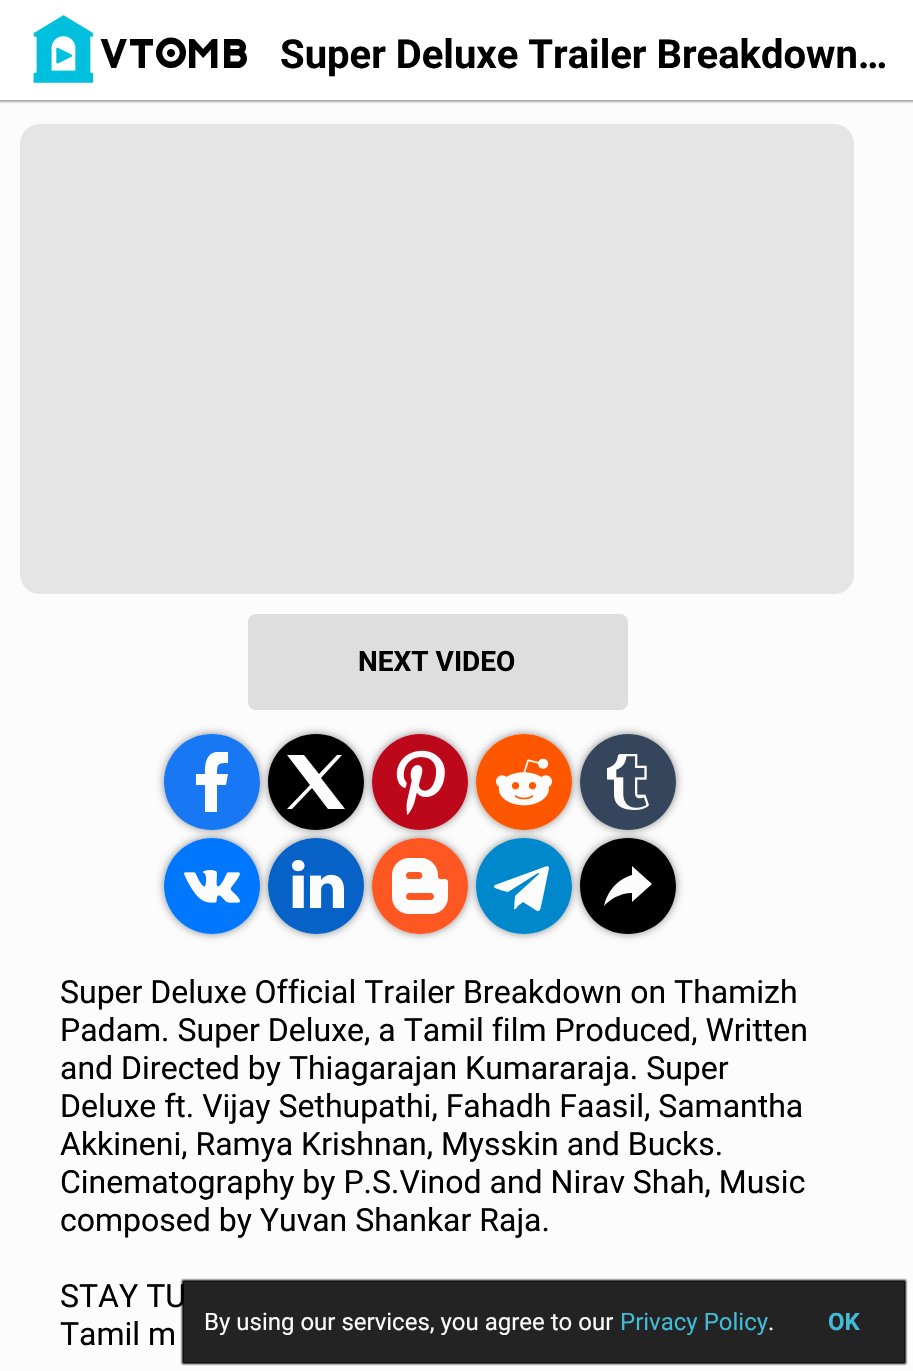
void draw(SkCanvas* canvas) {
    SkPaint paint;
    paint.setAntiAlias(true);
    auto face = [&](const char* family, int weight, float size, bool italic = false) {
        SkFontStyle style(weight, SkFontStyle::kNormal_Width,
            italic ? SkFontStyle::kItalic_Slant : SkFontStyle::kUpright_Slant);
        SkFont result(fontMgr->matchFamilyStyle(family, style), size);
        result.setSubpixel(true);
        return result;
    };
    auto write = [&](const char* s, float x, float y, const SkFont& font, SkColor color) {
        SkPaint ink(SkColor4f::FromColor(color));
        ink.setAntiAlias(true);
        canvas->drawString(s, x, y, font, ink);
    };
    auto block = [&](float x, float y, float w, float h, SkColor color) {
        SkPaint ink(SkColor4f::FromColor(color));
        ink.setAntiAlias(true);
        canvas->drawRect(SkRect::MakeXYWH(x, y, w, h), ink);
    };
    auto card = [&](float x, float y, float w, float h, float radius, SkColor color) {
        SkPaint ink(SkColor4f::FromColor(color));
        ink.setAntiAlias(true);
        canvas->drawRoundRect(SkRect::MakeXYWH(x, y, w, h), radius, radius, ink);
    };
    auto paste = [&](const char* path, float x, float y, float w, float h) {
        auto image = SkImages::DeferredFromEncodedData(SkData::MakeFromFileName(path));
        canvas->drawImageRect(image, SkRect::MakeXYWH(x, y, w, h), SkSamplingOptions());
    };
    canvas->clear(SkColorSetRGB(252, 252, 252));
    paint.setColor(SkColorSetRGB(169, 169, 169));
    paint.setMaskFilter(SkMaskFilter::MakeBlur(kNormal_SkBlurStyle, 1));
    canvas->drawRect(SkRect::MakeXYWH(-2, -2, 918, 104), paint);
    paint.setMaskFilter(nullptr);
    block(0, 0, 913, 100, SK_ColorWHITE);
    paste("pic1.png", 33, 15, 214, 68);
    auto kFont1 = face("Roboto", 700, 40);
    write("Super Deluxe Trailer Breakdown…", 280, 68, kFont1, SK_ColorBLACK);
    card(20, 124, 834, 470, 20, SkColorSetRGB(229, 229, 229));
    card(248, 614, 380, 96, 8, SkColorSetRGB(222, 222, 222));
    auto kFont2 = face("Roboto", 700, 28);
    write("NEXT VIDEO", 358, 671, kFont2, SK_ColorBLACK);
    canvas->save();
    canvas->clipPath(SkPathBuilder(SkPathFillType::kEvenOdd).moveTo(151, 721).lineTo(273, 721).lineTo(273, 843).lineTo(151, 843).close().moveTo(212, 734).cubicTo(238.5f, 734, 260, 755.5f, 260, 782).cubicTo(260, 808.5f, 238.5f, 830, 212, 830).cubicTo(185.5f, 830, 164, 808.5f, 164, 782).cubicTo(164, 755.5f, 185.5f, 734, 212, 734).close().detach(), true);
    paint.setColor(SkColorSetRGB(136, 136, 136));
    paint.setMaskFilter(SkMaskFilter::MakeBlur(kNormal_SkBlurStyle, 4));
    canvas->drawRoundRect(SkRect::MakeXYWH(164, 734, 96, 96), 48, 48, paint);
    paint.setMaskFilter(nullptr);
    canvas->restore();
    canvas->save();
    canvas->clipPath(SkPathBuilder(SkPathFillType::kEvenOdd).moveTo(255, 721).lineTo(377, 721).lineTo(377, 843).lineTo(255, 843).close().moveTo(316, 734).cubicTo(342.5f, 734, 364, 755.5f, 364, 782).cubicTo(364, 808.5f, 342.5f, 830, 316, 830).cubicTo(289.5f, 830, 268, 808.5f, 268, 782).cubicTo(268, 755.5f, 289.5f, 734, 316, 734).close().detach(), true);
    paint.setMaskFilter(SkMaskFilter::MakeBlur(kNormal_SkBlurStyle, 4));
    canvas->drawRoundRect(SkRect::MakeXYWH(268, 734, 96, 96), 48, 48, paint);
    paint.setMaskFilter(nullptr);
    canvas->restore();
    canvas->save();
    canvas->clipPath(SkPathBuilder(SkPathFillType::kEvenOdd).moveTo(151, 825).lineTo(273, 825).lineTo(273, 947).lineTo(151, 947).close().moveTo(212, 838).cubicTo(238.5f, 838, 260, 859.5f, 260, 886).cubicTo(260, 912.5f, 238.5f, 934, 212, 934).cubicTo(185.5f, 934, 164, 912.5f, 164, 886).cubicTo(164, 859.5f, 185.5f, 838, 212, 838).close().detach(), true);
    paint.setMaskFilter(SkMaskFilter::MakeBlur(kNormal_SkBlurStyle, 4));
    canvas->drawRoundRect(SkRect::MakeXYWH(164, 838, 96, 96), 48, 48, paint);
    paint.setMaskFilter(nullptr);
    canvas->restore();
    canvas->save();
    canvas->clipPath(SkPathBuilder(SkPathFillType::kEvenOdd).moveTo(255, 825).lineTo(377, 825).lineTo(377, 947).lineTo(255, 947).close().moveTo(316, 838).cubicTo(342.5f, 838, 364, 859.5f, 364, 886).cubicTo(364, 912.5f, 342.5f, 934, 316, 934).cubicTo(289.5f, 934, 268, 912.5f, 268, 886).cubicTo(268, 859.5f, 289.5f, 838, 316, 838).close().detach(), true);
    paint.setMaskFilter(SkMaskFilter::MakeBlur(kNormal_SkBlurStyle, 4));
    canvas->drawRoundRect(SkRect::MakeXYWH(268, 838, 96, 96), 48, 48, paint);
    paint.setMaskFilter(nullptr);
    canvas->restore();
    paint.setColor(SkColorSetRGB(24, 119, 242));
    canvas->drawPath(SkPathBuilder().moveTo(212, 734).cubicTo(239, 734, 260, 755, 260, 782).cubicTo(260, 809, 239, 830, 212, 830).cubicTo(185, 830, 164, 809, 164, 782).cubicTo(164, 755, 185, 734, 212, 734).close().moveTo(228, 763).lineTo(228, 752).lineTo(216, 752).cubicTo(205, 754, 205, 766, 205, 774).lineTo(196, 774).lineTo(196, 785).lineTo(205, 785).lineTo(205, 812).lineTo(217, 812).lineTo(217, 785).lineTo(226, 785).lineTo(228, 774).lineTo(217, 774).cubicTo(217, 764, 218, 763, 228, 763).close().detach(), paint);
    canvas->save();
    canvas->clipPath(SkPathBuilder(SkPathFillType::kEvenOdd).moveTo(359, 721).lineTo(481, 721).lineTo(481, 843).lineTo(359, 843).close().moveTo(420, 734).cubicTo(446.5f, 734, 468, 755.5f, 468, 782).cubicTo(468, 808.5f, 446.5f, 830, 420, 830).cubicTo(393.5f, 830, 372, 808.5f, 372, 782).cubicTo(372, 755.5f, 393.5f, 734, 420, 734).close().detach(), true);
    paint.setColor(SkColorSetRGB(136, 136, 136));
    paint.setMaskFilter(SkMaskFilter::MakeBlur(kNormal_SkBlurStyle, 4));
    canvas->drawRoundRect(SkRect::MakeXYWH(372, 734, 96, 96), 48, 48, paint);
    paint.setMaskFilter(nullptr);
    canvas->restore();
    canvas->save();
    canvas->clipPath(SkPathBuilder(SkPathFillType::kEvenOdd).moveTo(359, 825).lineTo(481, 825).lineTo(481, 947).lineTo(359, 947).close().moveTo(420, 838).cubicTo(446.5f, 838, 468, 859.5f, 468, 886).cubicTo(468, 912.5f, 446.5f, 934, 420, 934).cubicTo(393.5f, 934, 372, 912.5f, 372, 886).cubicTo(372, 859.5f, 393.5f, 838, 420, 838).close().detach(), true);
    paint.setMaskFilter(SkMaskFilter::MakeBlur(kNormal_SkBlurStyle, 4));
    canvas->drawRoundRect(SkRect::MakeXYWH(372, 838, 96, 96), 48, 48, paint);
    paint.setMaskFilter(nullptr);
    canvas->restore();
    paint.setColor(SK_ColorBLACK);
    canvas->drawPath(SkPathBuilder().moveTo(316, 734).cubicTo(289, 734, 268, 755, 268, 782).cubicTo(268, 809, 289, 830, 316, 830).cubicTo(343, 830, 364, 809, 364, 782).cubicTo(364, 755, 343, 734, 316, 734).close().moveTo(328, 809).lineTo(312, 788).lineTo(292, 809).lineTo(287, 809).lineTo(310, 785).lineTo(287, 755).lineTo(304, 755).lineTo(319, 774).lineTo(337, 755).lineTo(342, 755).lineTo(321, 778).lineTo(345, 809).close().detach(), paint);
    canvas->save();
    canvas->clipPath(SkPathBuilder(SkPathFillType::kEvenOdd).moveTo(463, 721).lineTo(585, 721).lineTo(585, 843).lineTo(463, 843).close().moveTo(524, 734).cubicTo(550.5f, 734, 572, 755.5f, 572, 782).cubicTo(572, 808.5f, 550.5f, 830, 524, 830).cubicTo(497.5f, 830, 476, 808.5f, 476, 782).cubicTo(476, 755.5f, 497.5f, 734, 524, 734).close().detach(), true);
    paint.setColor(SkColorSetRGB(136, 136, 136));
    paint.setMaskFilter(SkMaskFilter::MakeBlur(kNormal_SkBlurStyle, 4));
    canvas->drawRoundRect(SkRect::MakeXYWH(476, 734, 96, 96), 48, 48, paint);
    paint.setMaskFilter(nullptr);
    canvas->restore();
    canvas->save();
    canvas->clipPath(SkPathBuilder(SkPathFillType::kEvenOdd).moveTo(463, 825).lineTo(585, 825).lineTo(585, 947).lineTo(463, 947).close().moveTo(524, 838).cubicTo(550.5f, 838, 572, 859.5f, 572, 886).cubicTo(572, 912.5f, 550.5f, 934, 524, 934).cubicTo(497.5f, 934, 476, 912.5f, 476, 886).cubicTo(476, 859.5f, 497.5f, 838, 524, 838).close().detach(), true);
    paint.setMaskFilter(SkMaskFilter::MakeBlur(kNormal_SkBlurStyle, 4));
    canvas->drawRoundRect(SkRect::MakeXYWH(476, 838, 96, 96), 48, 48, paint);
    paint.setMaskFilter(nullptr);
    canvas->restore();
    paste("pic2.png", 372, 734, 96, 96);
    canvas->save();
    canvas->clipPath(SkPathBuilder(SkPathFillType::kEvenOdd).moveTo(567, 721).lineTo(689, 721).lineTo(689, 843).lineTo(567, 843).close().moveTo(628, 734).cubicTo(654.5f, 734, 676, 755.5f, 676, 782).cubicTo(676, 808.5f, 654.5f, 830, 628, 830).cubicTo(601.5f, 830, 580, 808.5f, 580, 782).cubicTo(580, 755.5f, 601.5f, 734, 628, 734).close().detach(), true);
    paint.setMaskFilter(SkMaskFilter::MakeBlur(kNormal_SkBlurStyle, 4));
    canvas->drawRoundRect(SkRect::MakeXYWH(580, 734, 96, 96), 48, 48, paint);
    paint.setMaskFilter(nullptr);
    canvas->restore();
    canvas->save();
    canvas->clipPath(SkPathBuilder(SkPathFillType::kEvenOdd).moveTo(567, 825).lineTo(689, 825).lineTo(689, 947).lineTo(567, 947).close().moveTo(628, 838).cubicTo(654.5f, 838, 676, 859.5f, 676, 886).cubicTo(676, 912.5f, 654.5f, 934, 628, 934).cubicTo(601.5f, 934, 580, 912.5f, 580, 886).cubicTo(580, 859.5f, 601.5f, 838, 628, 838).close().detach(), true);
    paint.setMaskFilter(SkMaskFilter::MakeBlur(kNormal_SkBlurStyle, 4));
    canvas->drawRoundRect(SkRect::MakeXYWH(580, 838, 96, 96), 48, 48, paint);
    paint.setMaskFilter(nullptr);
    canvas->restore();
    paste("pic3.png", 476, 734, 96, 96);
    paste("pic4.png", 580, 734, 96, 96);
    paste("pic5.png", 164, 838, 96, 96);
    paste("pic6.png", 268, 838, 96, 96);
    paste("pic7.png", 372, 838, 96, 96);
    paint.setColor(SkColorSetRGB(0, 136, 204));
    canvas->drawPath(SkPathBuilder().moveTo(524, 838).cubicTo(497, 838, 476, 859, 476, 886).cubicTo(476, 913, 497, 934, 524, 934).cubicTo(551, 934, 572, 913, 572, 886).cubicTo(572, 859, 551, 838, 524, 838).close().moveTo(549, 868).lineTo(542, 902).cubicTo(540, 909, 541, 914, 534, 909).lineTo(523, 902).lineTo(518, 906).cubicTo(517, 907, 516, 910, 514, 909).lineTo(515, 896).lineTo(539, 874).cubicTo(539, 874, 539, 873, 538, 873).lineTo(508, 892).lineTo(500, 890).cubicTo(499, 889, 491, 888, 495, 885).lineTo(547, 866).cubicTo(548, 866, 549, 867, 549, 868).close().detach(), paint);
    paint.setColor(SK_ColorBLACK);
    canvas->drawPath(SkPathBuilder().moveTo(628, 838).cubicTo(601, 838, 580, 859, 580, 886).cubicTo(580, 913, 601, 934, 628, 934).cubicTo(655, 934, 676, 913, 676, 886).cubicTo(676, 859, 655, 838, 628, 838).close().moveTo(632, 902).lineTo(632, 893).cubicTo(632, 893, 617, 892, 604, 906).cubicTo(610, 880, 632, 875, 632, 875).lineTo(632, 866).lineTo(652, 884).close().detach(), paint);
    auto kFont3 = face("Roboto", 400, 32);
    write("Super Deluxe Official Trailer Breakdown on Thamizh", 60, 1003, kFont3, SK_ColorBLACK);
    write("Padam. Super Deluxe, a Tamil film Produced, Written", 60, 1041, kFont3, SK_ColorBLACK);
    write("and Directed by Thiagarajan Kumararaja. Super", 60, 1079, kFont3, SK_ColorBLACK);
    write("Deluxe ft. Vijay Sethupathi, Fahadh Faasil, Samantha", 60, 1117, kFont3, SK_ColorBLACK);
    write("Akkineni, Ramya Krishnan, Mysskin and Bucks.", 60, 1155, kFont3, SK_ColorBLACK);
    write("Cinematography by P.S.Vinod and Nirav Shah, Music", 60, 1193, kFont3, SK_ColorBLACK);
    write("composed by Yuvan Shankar Raja.", 60, 1231, kFont3, SK_ColorBLACK);
    write("STAY TU", 60, 1307, kFont3, SK_ColorBLACK);
    write("Tamil m", 60, 1345, kFont3, SK_ColorBLACK);
    paint.setMaskFilter(SkMaskFilter::MakeBlur(kNormal_SkBlurStyle, 1));
    canvas->drawRect(SkRect::MakeXYWH(182, 1280, 724, 84), paint);
    paint.setMaskFilter(nullptr);
    block(184, 1282, 720, 80, SkColorSetRGB(35, 35, 35));
    auto kFont4 = face("Roboto", 400, 24);
    write("By using our services, you agree to our", 204, 1330, kFont4, SkColorSetRGB(252, 252, 252));
    write("Privacy Policy", 620, 1330, kFont4, SkColorSetRGB(66, 187, 214));
    write(".", 768, 1330, kFont4, SkColorSetRGB(252, 252, 252));
    auto kFont5 = face("Roboto", 700, 24);
    write("OK", 828, 1330, kFont5, SkColorSetRGB(66, 187, 214));
}
